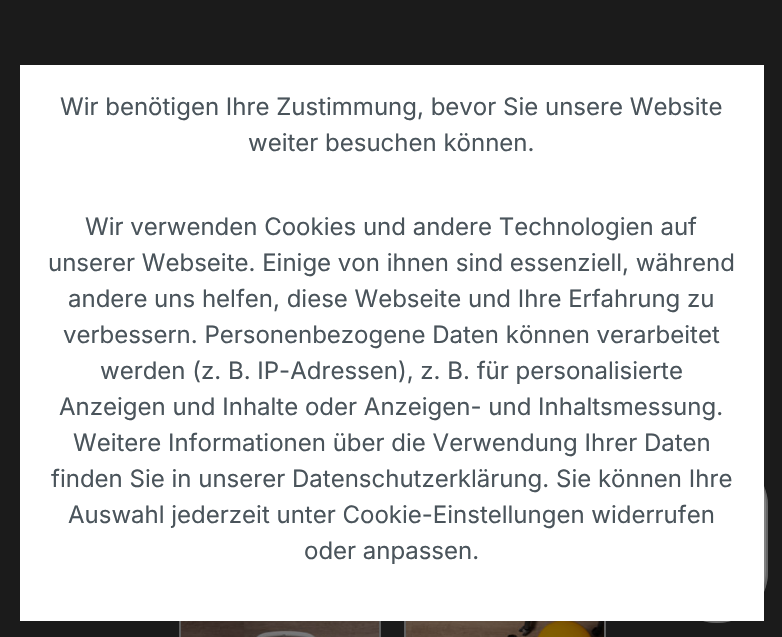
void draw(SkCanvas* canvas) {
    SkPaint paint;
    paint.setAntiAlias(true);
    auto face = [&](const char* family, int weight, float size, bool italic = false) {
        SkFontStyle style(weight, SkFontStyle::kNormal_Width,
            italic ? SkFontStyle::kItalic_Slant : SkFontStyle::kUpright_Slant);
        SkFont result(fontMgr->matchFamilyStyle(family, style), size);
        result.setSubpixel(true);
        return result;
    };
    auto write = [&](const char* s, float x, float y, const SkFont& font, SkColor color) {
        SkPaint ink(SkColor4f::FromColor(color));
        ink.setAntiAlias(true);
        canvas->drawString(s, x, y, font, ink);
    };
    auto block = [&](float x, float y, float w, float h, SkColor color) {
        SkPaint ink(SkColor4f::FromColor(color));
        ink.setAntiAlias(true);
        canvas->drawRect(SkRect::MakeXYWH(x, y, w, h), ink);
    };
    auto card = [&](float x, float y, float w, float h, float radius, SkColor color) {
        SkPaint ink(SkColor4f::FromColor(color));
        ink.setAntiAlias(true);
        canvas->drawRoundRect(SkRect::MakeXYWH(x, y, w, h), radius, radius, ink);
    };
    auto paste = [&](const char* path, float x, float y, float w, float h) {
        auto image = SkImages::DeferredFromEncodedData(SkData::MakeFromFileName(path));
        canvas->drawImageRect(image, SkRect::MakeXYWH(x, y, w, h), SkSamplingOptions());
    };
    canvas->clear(SkColorSetRGB(27, 27, 27));
    paste("pic1.png", 181, 621, 198, 16);
    paint.setStyle(SkPaint::kStroke_Style);
    paint.setStrokeWidth(2);
    paint.setColor(SkColorSetRGB(96, 96, 96));
    canvas->drawRect(SkRect::MakeXYWH(180, 586, 200, 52), paint);
    paste("pic2.png", 406, 621, 198, 16);
    canvas->drawRect(SkRect::MakeXYWH(405, 586, 200, 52), paint);
    card(666, 455, 102, 168, 51, SkColorSetRGB(128, 128, 128));
    paint.setStyle(SkPaint::kFill_Style);
    paint.setColor(SkColorSetARGB(51, 0, 0, 0));
    canvas->drawPath(SkPathBuilder().moveTo(678, 605).cubicTo(687, 616, 701, 623, 717, 623).cubicTo(745, 623, 768, 600, 768, 572).lineTo(768, 506).cubicTo(768, 493, 763, 481, 755, 472).cubicTo(762, 481, 766, 492, 766, 504).lineTo(766, 570).cubicTo(766, 598, 744, 621, 716, 621).cubicTo(701, 621, 687, 615, 678, 605).close().detach(), paint);
    paint.setColor(SkColorSetARGB(51, 25, 25, 25));
    canvas->drawPath(SkPathBuilder().moveTo(678, 605).cubicTo(688, 616, 702, 623, 717, 623).cubicTo(745, 623, 768, 600, 768, 572).lineTo(768, 506).cubicTo(768, 494, 764, 483, 757, 474).cubicTo(763, 483, 767, 493, 767, 505).lineTo(767, 571).cubicTo(767, 599, 744, 622, 716, 622).cubicTo(701, 622, 688, 616, 678, 605).close().detach(), paint);
    paint.setColor(SkColorSetARGB(77, 128, 128, 128));
    canvas->drawPath(SkPathBuilder().moveTo(678, 605).cubicTo(688, 616, 702, 623, 717, 623).cubicTo(745, 623, 768, 600, 768, 572).lineTo(768, 506).cubicTo(768, 491, 761, 477, 750, 467).cubicTo(761, 477, 767, 490, 767, 505).lineTo(767, 571).cubicTo(767, 599, 744, 622, 716, 622).cubicTo(701, 622, 688, 616, 678, 605).close().detach(), paint);
    block(20, 65, 744, 556, SK_ColorWHITE);
    auto kFont1 = face("Inter", 400, 24);
    write("Wir benötigen Ihre Zustimmung, bevor Sie unsere Website", 60, 115, kFont1, SkColorSetRGB(74, 84, 91));
    write("weiter besuchen können.", 248, 151, kFont1, SkColorSetRGB(74, 84, 91));
    write("Wir verwenden Cookies und andere Technologien auf", 85, 235, kFont1, SkColorSetRGB(74, 84, 91));
    write("unserer Webseite. Einige von ihnen sind essenziell, während", 48, 271, kFont1, SkColorSetRGB(74, 84, 91));
    write("andere uns helfen, diese Webseite und Ihre Erfahrung zu", 68, 307, kFont1, SkColorSetRGB(74, 84, 91));
    write("verbessern. Personenbezogene Daten können verarbeitet", 63, 343, kFont1, SkColorSetRGB(74, 84, 91));
    write("werden (z. B. IP-Adressen), z. B. für personalisierte", 100, 379, kFont1, SkColorSetRGB(74, 84, 91));
    write("Anzeigen und Inhalte oder Anzeigen- und Inhaltsmessung.", 59, 415, kFont1, SkColorSetRGB(74, 84, 91));
    write("Weitere Informationen über die Verwendung Ihrer Daten", 73, 451, kFont1, SkColorSetRGB(74, 84, 91));
    write("finden Sie in unserer Datenschutzerklärung. Sie können Ihre", 51, 487, kFont1, SkColorSetRGB(74, 84, 91));
    write("Auswahl jederzeit unter Cookie-Einstellungen widerrufen", 68, 523, kFont1, SkColorSetRGB(74, 84, 91));
    write("oder anpassen.", 304, 559, kFont1, SkColorSetRGB(74, 84, 91));
}
